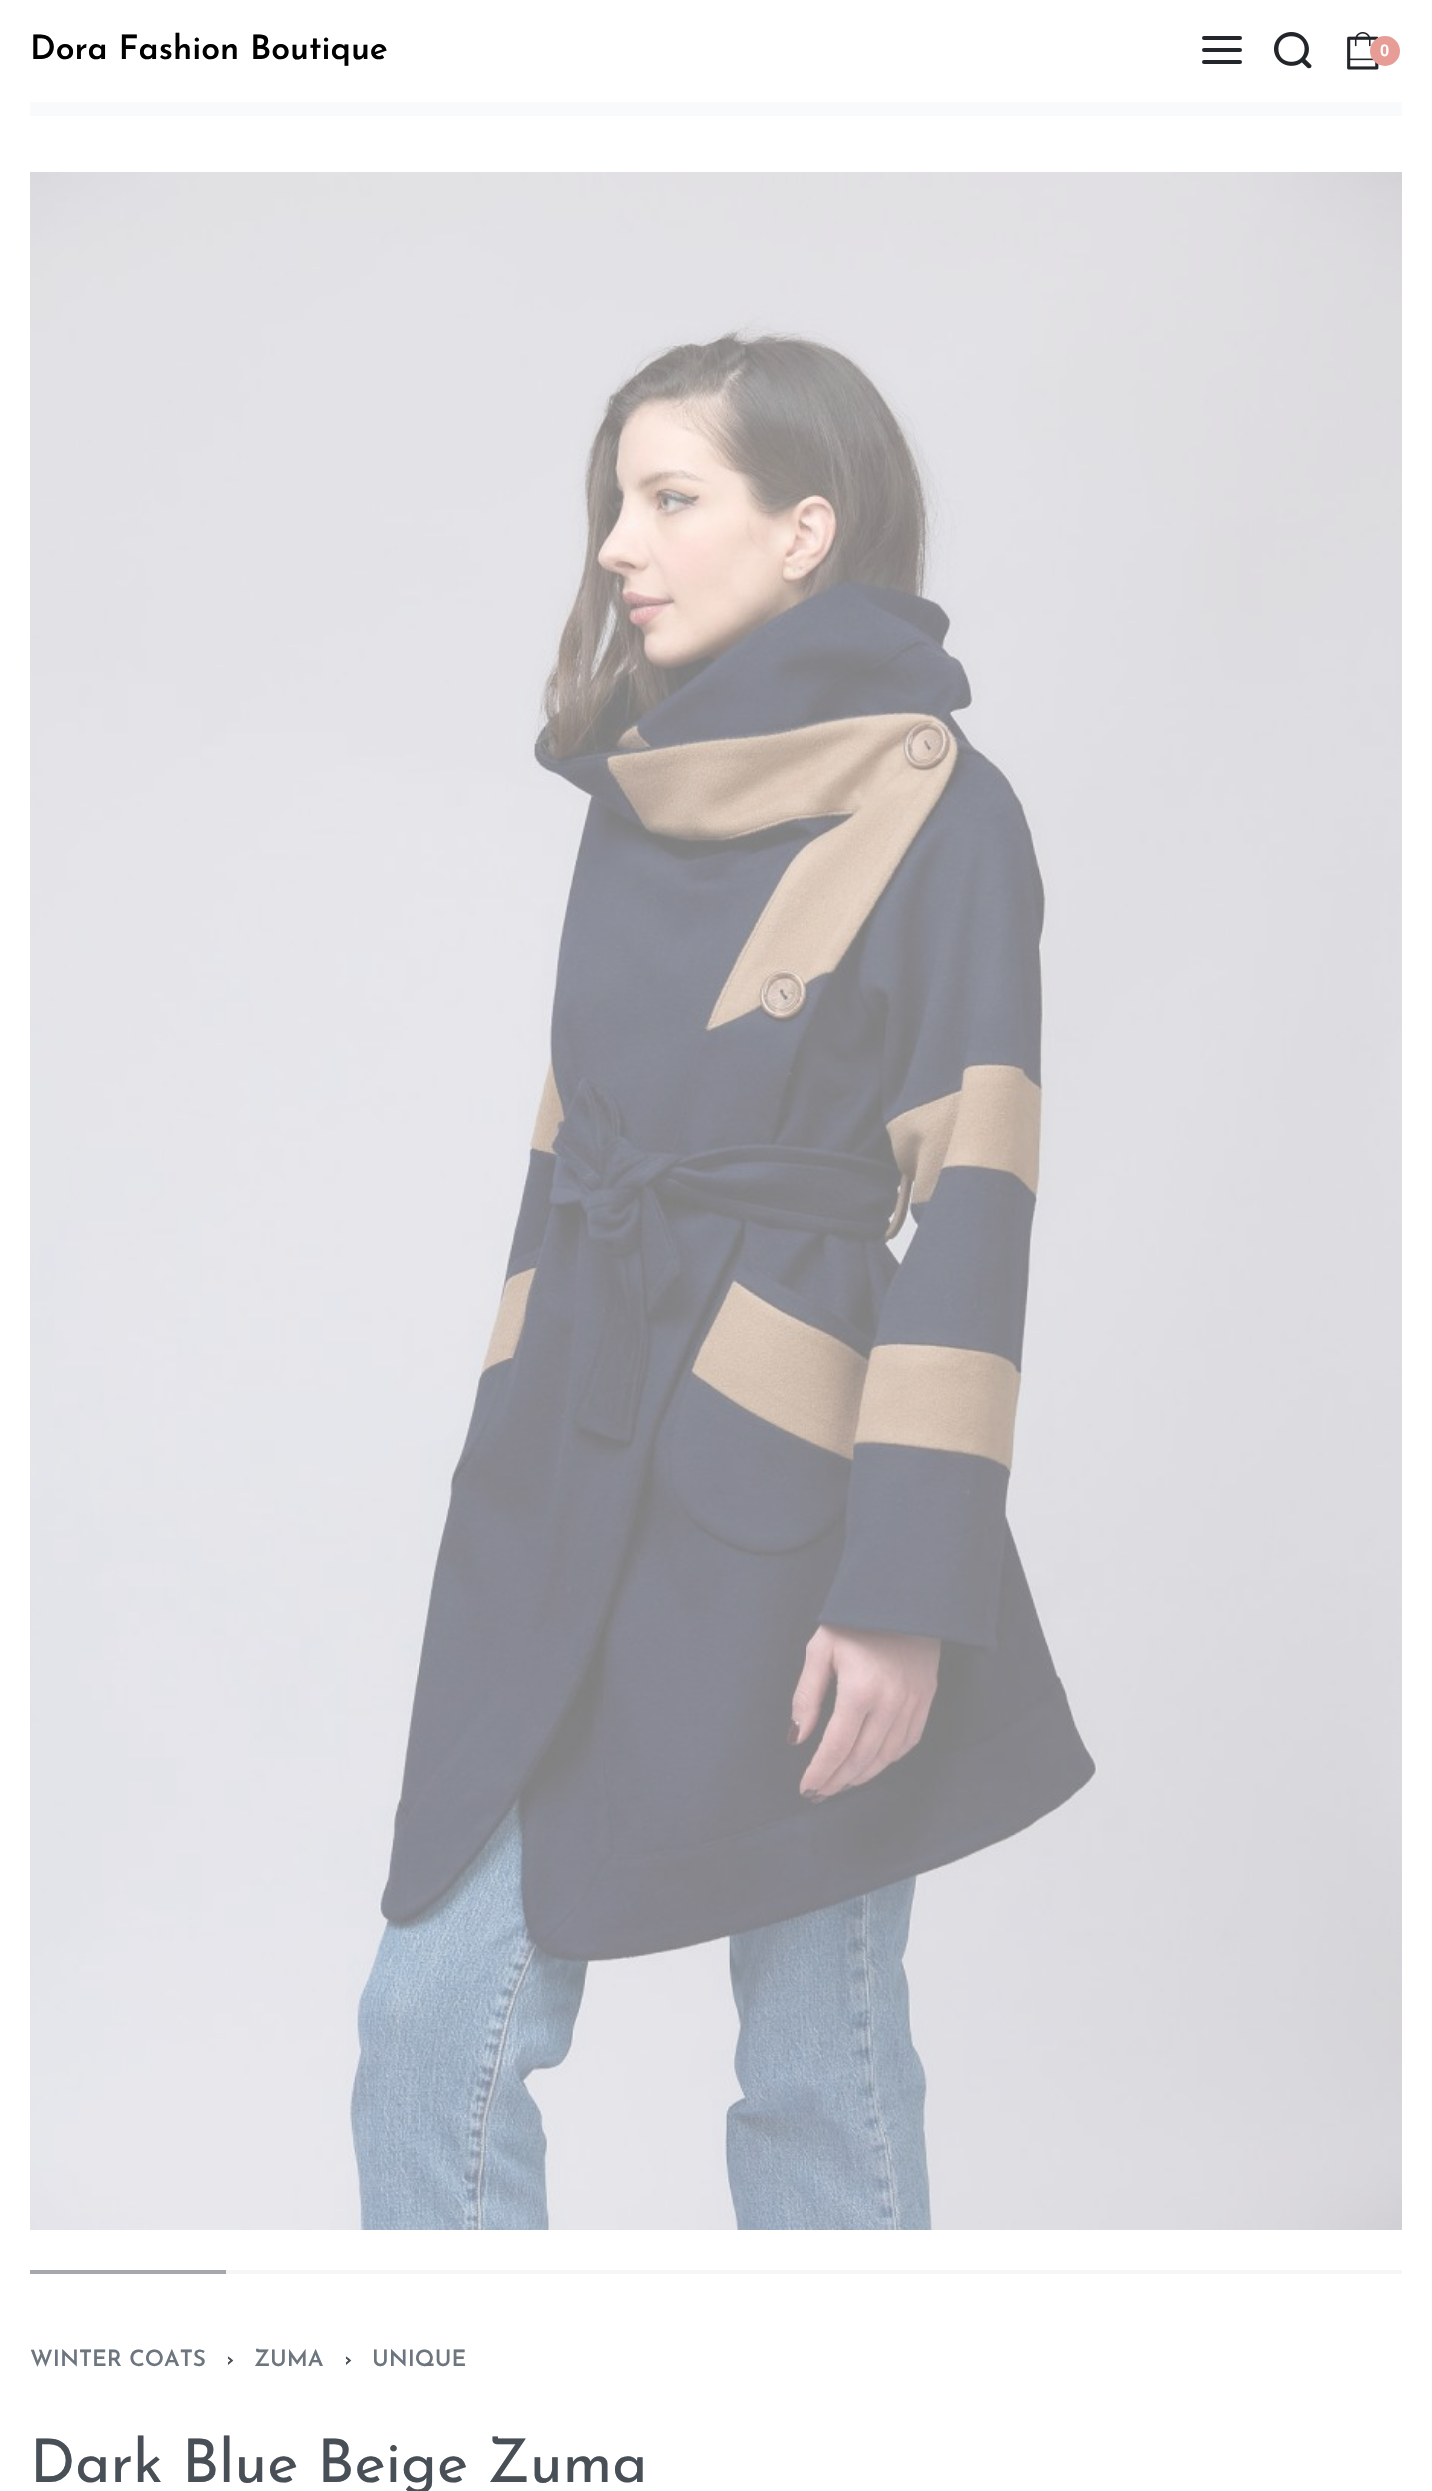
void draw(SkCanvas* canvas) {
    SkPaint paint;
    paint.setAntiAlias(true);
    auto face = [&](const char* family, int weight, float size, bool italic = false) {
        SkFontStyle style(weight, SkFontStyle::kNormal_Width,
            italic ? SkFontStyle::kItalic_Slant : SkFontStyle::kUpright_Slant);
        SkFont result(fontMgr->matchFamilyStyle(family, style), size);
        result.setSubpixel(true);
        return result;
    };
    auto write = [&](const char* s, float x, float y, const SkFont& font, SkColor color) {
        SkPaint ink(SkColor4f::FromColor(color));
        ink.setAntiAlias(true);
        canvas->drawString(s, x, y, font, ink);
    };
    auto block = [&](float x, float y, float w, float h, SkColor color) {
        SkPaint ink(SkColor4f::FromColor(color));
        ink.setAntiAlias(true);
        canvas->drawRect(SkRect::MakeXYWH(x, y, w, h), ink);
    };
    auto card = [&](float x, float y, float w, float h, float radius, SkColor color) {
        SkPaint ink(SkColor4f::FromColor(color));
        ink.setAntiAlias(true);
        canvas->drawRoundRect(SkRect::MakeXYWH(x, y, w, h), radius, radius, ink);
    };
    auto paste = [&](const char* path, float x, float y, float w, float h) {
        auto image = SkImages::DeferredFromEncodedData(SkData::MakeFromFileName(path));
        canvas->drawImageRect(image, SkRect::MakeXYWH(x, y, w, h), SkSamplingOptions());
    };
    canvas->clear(SK_ColorWHITE);
    auto kFont1 = face("Josefin Sans", 600, 33.75f);
    write("Dora Fashion Boutique", 30, 59, kFont1, SK_ColorBLACK);
    card(1202, 36, 40, 4, 2, SkColorSetRGB(34, 38, 42));
    card(1202, 48, 40, 4, 2, SkColorSetRGB(34, 38, 42));
    card(1202, 60, 40, 4, 2, SkColorSetRGB(34, 38, 42));
    paste("pic1.png", 1274, 32, 38, 37);
    paste("pic2.png", 1347, 32, 32, 38);
    paint.setColor(SkColorSetRGB(231, 156, 150));
    canvas->drawCircle(1385, 51, 15, paint);
    auto kFont2 = face("Roboto", 600, 16);
    write("0", 1380, 56, kFont2, SK_ColorWHITE);
    block(30, 102, 1372, 14, SkColorSetRGB(249, 250, 251));
    paste("pic3.png", 30, 172, 1372, 2058);
    block(30, 2270, 196, 4, SkColorSetRGB(164, 167, 171));
    block(226, 2270, 1176, 4, SkColorSetRGB(245, 246, 248));
    auto kFont3 = face("Josefin Sans", 600, 22.5f);
    write("WINTER COATS", 30, 2366, kFont3, SkColorSetRGB(109, 117, 126));
    write("›", 226, 2366, kFont3, SkColorSetRGB(72, 79, 86));
    write("ZUMA", 254, 2366, kFont3, SkColorSetRGB(109, 117, 126));
    write("›", 344, 2366, kFont3, SkColorSetRGB(72, 79, 86));
    write("UNIQUE", 372, 2366, kFont3, SkColorSetRGB(109, 117, 126));
    auto kFont4 = face("Josefin Sans", 400, 60);
    write("Dark Blue Beige Zuma", 30, 2482, kFont4, SkColorSetRGB(72, 79, 86));
}
